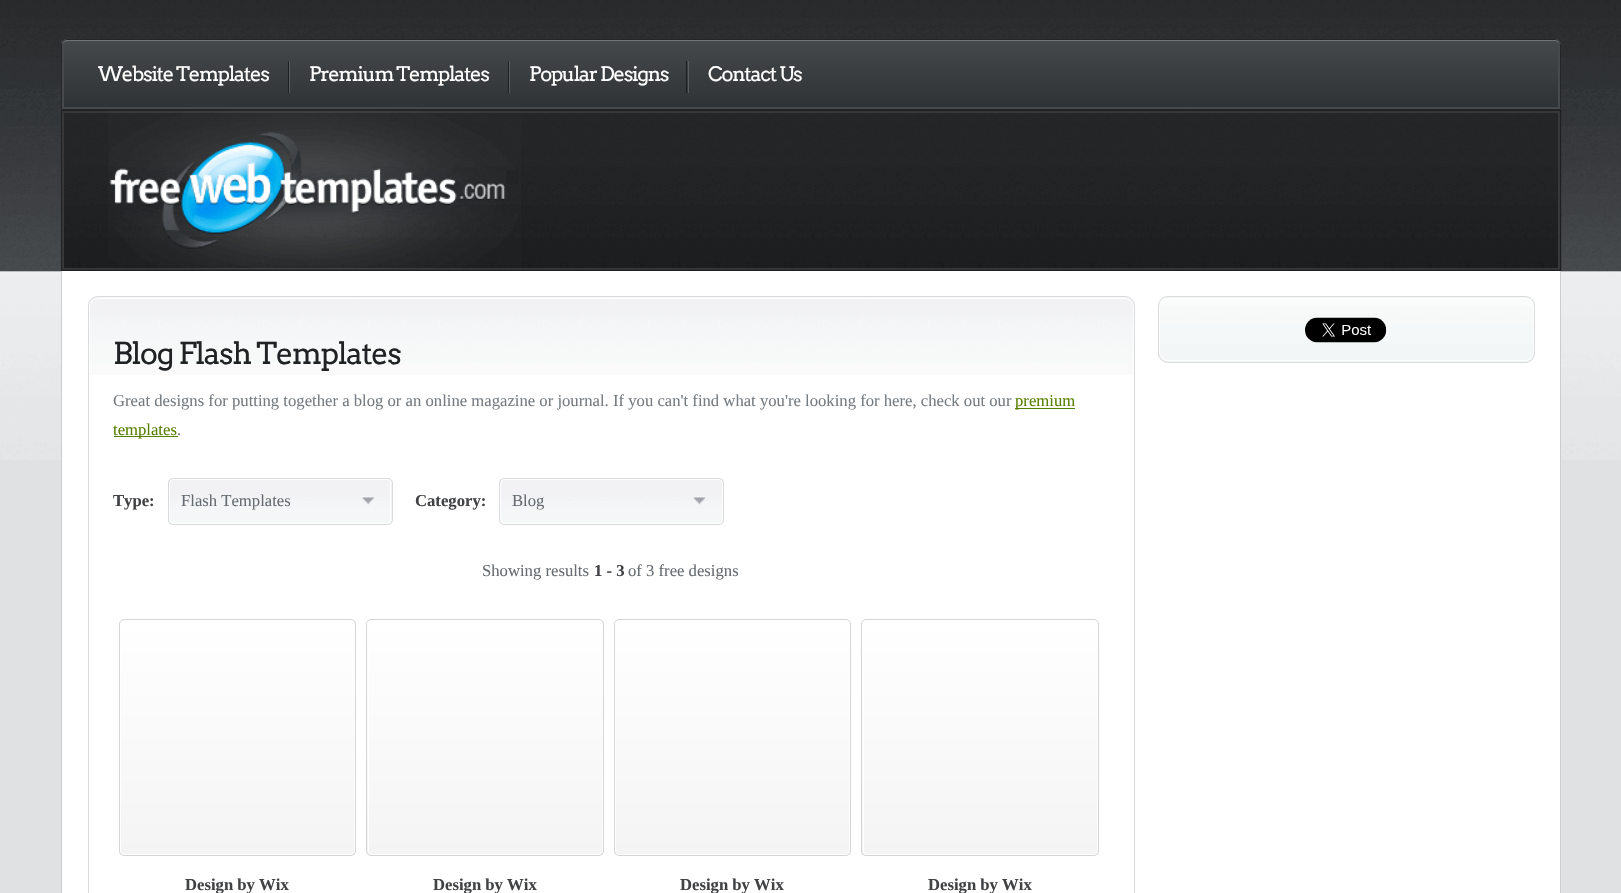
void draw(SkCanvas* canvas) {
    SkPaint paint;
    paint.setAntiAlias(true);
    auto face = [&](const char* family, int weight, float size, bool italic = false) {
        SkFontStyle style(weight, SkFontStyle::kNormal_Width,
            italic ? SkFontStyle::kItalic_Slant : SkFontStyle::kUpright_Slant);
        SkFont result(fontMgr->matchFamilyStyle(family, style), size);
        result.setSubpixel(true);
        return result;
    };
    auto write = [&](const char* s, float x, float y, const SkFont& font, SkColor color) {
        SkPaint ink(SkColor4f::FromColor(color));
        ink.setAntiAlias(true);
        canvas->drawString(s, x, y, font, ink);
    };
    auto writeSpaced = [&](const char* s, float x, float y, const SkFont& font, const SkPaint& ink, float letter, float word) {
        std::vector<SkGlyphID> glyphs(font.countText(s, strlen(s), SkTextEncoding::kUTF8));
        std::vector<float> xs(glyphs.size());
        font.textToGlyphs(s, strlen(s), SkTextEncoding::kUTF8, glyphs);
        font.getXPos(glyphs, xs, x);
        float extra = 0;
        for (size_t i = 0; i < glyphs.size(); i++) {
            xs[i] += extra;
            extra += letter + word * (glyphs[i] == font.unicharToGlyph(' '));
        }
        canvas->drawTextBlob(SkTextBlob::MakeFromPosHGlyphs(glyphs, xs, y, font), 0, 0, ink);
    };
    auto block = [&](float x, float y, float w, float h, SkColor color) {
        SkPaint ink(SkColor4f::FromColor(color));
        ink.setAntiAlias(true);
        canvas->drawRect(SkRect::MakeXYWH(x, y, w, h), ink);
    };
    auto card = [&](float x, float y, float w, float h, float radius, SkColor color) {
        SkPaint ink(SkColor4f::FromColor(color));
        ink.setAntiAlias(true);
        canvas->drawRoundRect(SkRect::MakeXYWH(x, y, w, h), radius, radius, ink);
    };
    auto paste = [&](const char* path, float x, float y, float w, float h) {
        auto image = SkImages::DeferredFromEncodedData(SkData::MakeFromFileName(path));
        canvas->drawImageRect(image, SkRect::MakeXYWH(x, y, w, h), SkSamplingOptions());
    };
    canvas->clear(SkColorSetRGB(224, 225, 226));
    paste("pic1.png", 0, 0, 1621, 460);
    {
        const SkColor colors[] = {SkColorSetRGB(70, 73, 76), SkColorSetRGB(47, 50, 52)};
        const float stops[] = {0, 1};
        const SkPoint ends[] = {{811, 39}, {811, 110}};
        paint.setShader(SkGradientShader::MakeLinear(ends, colors, stops, 2, SkTileMode::kClamp));
        paint.setAlpha(255);
    }
    canvas->drawPath(SkPathBuilder().moveTo(67, 40.5f).lineTo(1555, 40.5f).cubicTo(1557.5f, 40.5f, 1559.5f, 42.5f, 1559.5f, 45).lineTo(1559.5f, 108.5f).lineTo(62.5f, 108.5f).lineTo(62.5f, 45).cubicTo(62.5f, 42.5f, 64.5f, 40.5f, 67, 40.5f).close().detach(), paint);
    paint.setStyle(SkPaint::kStroke_Style);
    paint.setStrokeWidth(3);
    paint.setShader(nullptr);
    paint.setColor(SkColorSetRGB(70, 74, 77));
    canvas->drawPath(SkPathBuilder().moveTo(67, 40.5f).lineTo(1555, 40.5f).cubicTo(1557.5f, 40.5f, 1559.5f, 42.5f, 1559.5f, 45).lineTo(1559.5f, 108.5f).lineTo(62.5f, 108.5f).lineTo(62.5f, 45).cubicTo(62.5f, 42.5f, 64.5f, 40.5f, 67, 40.5f).close().detach(), paint);
    paint.setStyle(SkPaint::kFill_Style);
    paint.setColor(SkColorSetRGB(111, 116, 121));
    canvas->drawPath(SkPathBuilder().moveTo(68, 41).lineTo(1555, 41).cubicTo(1558, 41, 1561, 44, 1561, 48).lineTo(1561, 45).cubicTo(1561, 42, 1558, 39, 1555, 39).lineTo(67, 39).cubicTo(64, 39, 61, 42, 61, 45).lineTo(61, 48).cubicTo(61, 44, 64, 41, 68, 41).close().detach(), paint);
    paint.setStyle(SkPaint::kStroke_Style);
    paint.setStrokeWidth(1);
    paint.setColor(SkColorSetRGB(36, 37, 39));
    canvas->drawPath(SkPathBuilder().moveTo(67, 39.5f).lineTo(1555, 39.5f).cubicTo(1558, 39.5f, 1560.5f, 42, 1560.5f, 45).lineTo(1560.5f, 109.5f).lineTo(61.5f, 109.5f).lineTo(61.5f, 45).cubicTo(61.5f, 42, 64, 39.5f, 67, 39.5f).close().detach(), paint);
    block(288, 61, 1, 32, SkColorSetRGB(29, 30, 31));
    auto kFont1 = face("Arvo", 400, 20);
    paint.setStyle(SkPaint::kFill_Style);
    paint.setColor(SK_ColorWHITE);
    writeSpaced("Website Templates", 98, 81, kFont1, paint, -1.25f, 0);
    block(508, 61, 1, 32, SkColorSetRGB(29, 30, 31));
    block(289, 61, 1, 32, SkColorSetRGB(90, 94, 98));
    writeSpaced("Premium Templates", 309, 81, kFont1, paint, -1.25f, 0);
    block(686, 61, 1, 32, SkColorSetRGB(29, 30, 31));
    block(509, 61, 1, 32, SkColorSetRGB(90, 94, 98));
    writeSpaced("Popular Designs", 529, 81, kFont1, paint, -1.25f, 0);
    block(688, 61, 1, 32, SkColorSetRGB(90, 94, 98));
    writeSpaced("Contact Us", 708, 81, kFont1, paint, -1.25f, 0);
    paste("pic2.png", 64, 110, 1498, 162);
    paint.setStyle(SkPaint::kStroke_Style);
    paint.setStrokeWidth(3);
    paint.setColor(SkColorSetRGB(56, 56, 56));
    canvas->drawRect(SkRect::MakeXYWH(62.5f, 111.5f, 1497, 158), paint);
    block(61, 269, 1500, 1, SkColorSetRGB(48, 48, 48));
    paint.setStrokeWidth(1);
    paint.setColor(SkColorSetRGB(30, 31, 33));
    canvas->drawRect(SkRect::MakeXYWH(61.5f, 110.5f, 1499, 160), paint);
    paste("pic3.png", 108, 110, 413, 159);
    block(62, 271, 1498, 622, SK_ColorWHITE);
    block(1560, 271, 1, 622, SkColorSetRGB(203, 205, 207));
    block(61, 271, 1, 622, SkColorSetRGB(203, 205, 207));
    card(1158, 296, 377, 67, 10, SkColorSetRGB(239, 241, 242));
    paste("pic4.png", 1158, 297, 377, 65);
    paint.setColor(SK_ColorWHITE);
    canvas->drawRoundRect(SkRect::MakeXYWH(1159.5f, 298.5f, 374, 62), 8.5f, 8.5f, paint);
    paint.setColor(SkColorSetRGB(216, 218, 220));
    canvas->drawRoundRect(SkRect::MakeXYWH(1158.5f, 296.5f, 376, 66), 9.5f, 9.5f, paint);
    paste("pic5.png", 1305, 317, 82, 26);
    paste("pic6.png", 88, 297, 1047, 78);
    paint.setColor(SK_ColorWHITE);
    canvas->drawRoundRect(SkRect::MakeXYWH(89.5f, 298.5f, 1044, 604), 8.5f, 8.5f, paint);
    paint.setColor(SkColorSetRGB(216, 218, 220));
    canvas->drawRoundRect(SkRect::MakeXYWH(88.5f, 296.5f, 1046, 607), 9.5f, 9.5f, paint);
    auto kFont2 = face("Arvo", 400, 30);
    paint.setStyle(SkPaint::kFill_Style);
    paint.setColor(SkColorSetRGB(33, 34, 36));
    writeSpaced("Blog Flash Templates", 113, 364, kFont2, paint, -1.25f, 0);
    auto kFont3 = face("Liberation Serif", 400, 16.67f);
    write("Great designs for putting together a blog or an online magazine or journal. If you can't find what you're looking for here, check out our", 113, 406, kFont3, SkColorSetRGB(117, 123, 128));
    block(1015, 408, 60, 1, SkColorSetRGB(87, 127, 0));
    write("premium", 1015, 406, kFont3, SkColorSetRGB(87, 127, 0));
    block(114, 436, 64, 1, SkColorSetRGB(87, 127, 0));
    write("templates", 113, 435, kFont3, SkColorSetRGB(87, 127, 0));
    write(".", 177, 435, kFont3, SkColorSetRGB(117, 123, 128));
    auto kFont4 = face("Liberation Serif", 700, 16.67f);
    write("Type:", 113, 506, kFont4, SkColorSetRGB(65, 66, 68));
    paste("pic7.png", 168, 479, 224, 46);
    paint.setStyle(SkPaint::kStroke_Style);
    paint.setColor(SK_ColorWHITE);
    canvas->drawRoundRect(SkRect::MakeXYWH(169.5f, 479.5f, 221, 44), 3.5f, 3.5f, paint);
    paint.setColor(SkColorSetRGB(216, 218, 220));
    canvas->drawRoundRect(SkRect::MakeXYWH(168.5f, 478.5f, 224, 46), 4.5f, 4.5f, paint);
    write("Flash Templates", 181, 506, kFont3, SkColorSetRGB(101, 107, 112));
    paste("pic8.png", 362, 497, 13, 8);
    write("Category:", 415, 506, kFont4, SkColorSetRGB(65, 66, 68));
    paste("pic9.png", 499, 479, 225, 46);
    paint.setColor(SK_ColorWHITE);
    canvas->drawRoundRect(SkRect::MakeXYWH(500.5f, 479.5f, 222, 44), 3.5f, 3.5f, paint);
    paint.setColor(SkColorSetRGB(216, 218, 220));
    canvas->drawRoundRect(SkRect::MakeXYWH(499.5f, 478.5f, 224, 46), 4.5f, 4.5f, paint);
    write("Blog", 512, 506, kFont3, SkColorSetRGB(101, 107, 112));
    paste("pic10.png", 693, 497, 13, 8);
    write("Showing results", 482, 576, kFont3, SkColorSetRGB(101, 107, 112));
    write("1 - 3", 594, 576, kFont4, SkColorSetRGB(65, 66, 68));
    write("of 3 free designs", 628, 576, kFont3, SkColorSetRGB(101, 107, 112));
    canvas->save();
    canvas->clipPath(SkPathBuilder().moveTo(124, 619).lineTo(351, 619).cubicTo(354, 619, 356, 621, 356, 624).lineTo(356, 851).cubicTo(356, 854, 354, 856, 351, 856).lineTo(124, 856).cubicTo(121, 856, 119, 854, 119, 851).lineTo(119, 624).cubicTo(119, 621, 121, 619, 124, 619).close().detach(), true);
    paint.setStyle(SkPaint::kFill_Style);
    {
        const SkColor colors[] = {SK_ColorWHITE, SkColorSetRGB(244, 244, 244)};
        const float stops[] = {0, 1};
        const SkPoint ends[] = {{238, 620}, {238, 855}};
        paint.setShader(SkGradientShader::MakeLinear(ends, colors, stops, 2, SkTileMode::kClamp));
        paint.setAlpha(255);
    }
    canvas->drawRect(SkRect::MakeXYWH(119, 620, 237, 235), paint);
    canvas->restore();
    paint.setStyle(SkPaint::kStroke_Style);
    paint.setShader(nullptr);
    paint.setColor(SK_ColorWHITE);
    canvas->drawRoundRect(SkRect::MakeXYWH(120.5f, 620.5f, 234, 234), 3.5f, 3.5f, paint);
    paint.setColor(SkColorSetRGB(212, 213, 215));
    canvas->drawRoundRect(SkRect::MakeXYWH(119.5f, 619.5f, 236, 236), 4.5f, 4.5f, paint);
    write("Design by Wix", 185, 890, kFont4, SkColorSetRGB(65, 66, 68));
    canvas->save();
    canvas->clipPath(SkPathBuilder().moveTo(371, 619).lineTo(599, 619).cubicTo(602, 619, 604, 621, 604, 624).lineTo(604, 851).cubicTo(604, 854, 602, 856, 599, 856).lineTo(371, 856).cubicTo(368, 856, 366, 854, 366, 851).lineTo(366, 624).cubicTo(366, 621, 368, 619, 371, 619).close().detach(), true);
    paint.setStyle(SkPaint::kFill_Style);
    {
        const SkColor colors[] = {SK_ColorWHITE, SkColorSetRGB(244, 244, 244)};
        const float stops[] = {0, 1};
        const SkPoint ends[] = {{485, 620}, {485, 855}};
        paint.setShader(SkGradientShader::MakeLinear(ends, colors, stops, 2, SkTileMode::kClamp));
        paint.setAlpha(255);
    }
    canvas->drawRect(SkRect::MakeXYWH(366, 620, 238, 235), paint);
    canvas->restore();
    paint.setStyle(SkPaint::kStroke_Style);
    paint.setShader(nullptr);
    paint.setColor(SK_ColorWHITE);
    canvas->drawRoundRect(SkRect::MakeXYWH(368.5f, 620.5f, 234, 234), 3.5f, 3.5f, paint);
    paint.setColor(SkColorSetRGB(212, 213, 215));
    canvas->drawRoundRect(SkRect::MakeXYWH(366.5f, 619.5f, 237, 236), 4.5f, 4.5f, paint);
    write("Design by Wix", 433, 890, kFont4, SkColorSetRGB(65, 66, 68));
    canvas->save();
    canvas->clipPath(SkPathBuilder().moveTo(619, 619).lineTo(846, 619).cubicTo(849, 619, 851, 621, 851, 624).lineTo(851, 851).cubicTo(851, 854, 849, 856, 846, 856).lineTo(619, 856).cubicTo(616, 856, 614, 854, 614, 851).lineTo(614, 624).cubicTo(614, 621, 616, 619, 619, 619).close().detach(), true);
    paint.setStyle(SkPaint::kFill_Style);
    {
        const SkColor colors[] = {SK_ColorWHITE, SkColorSetRGB(244, 244, 244)};
        const float stops[] = {0, 1};
        const SkPoint ends[] = {{733, 620}, {733, 855}};
        paint.setShader(SkGradientShader::MakeLinear(ends, colors, stops, 2, SkTileMode::kClamp));
        paint.setAlpha(255);
    }
    canvas->drawRect(SkRect::MakeXYWH(614, 620, 237, 235), paint);
    canvas->restore();
    paint.setStyle(SkPaint::kStroke_Style);
    paint.setShader(nullptr);
    paint.setColor(SK_ColorWHITE);
    canvas->drawRoundRect(SkRect::MakeXYWH(615.5f, 620.5f, 234, 234), 3.5f, 3.5f, paint);
    paint.setColor(SkColorSetRGB(212, 213, 215));
    canvas->drawRoundRect(SkRect::MakeXYWH(614.5f, 619.5f, 236, 236), 4.5f, 4.5f, paint);
    write("Design by Wix", 680, 890, kFont4, SkColorSetRGB(65, 66, 68));
    canvas->save();
    canvas->clipPath(SkPathBuilder().moveTo(866, 619).lineTo(1094, 619).cubicTo(1097, 619, 1099, 621, 1099, 624).lineTo(1099, 851).cubicTo(1099, 854, 1097, 856, 1094, 856).lineTo(866, 856).cubicTo(863, 856, 861, 854, 861, 851).lineTo(861, 624).cubicTo(861, 621, 863, 619, 866, 619).close().detach(), true);
    paint.setStyle(SkPaint::kFill_Style);
    {
        const SkColor colors[] = {SK_ColorWHITE, SkColorSetRGB(244, 244, 244)};
        const float stops[] = {0, 1};
        const SkPoint ends[] = {{980, 620}, {980, 855}};
        paint.setShader(SkGradientShader::MakeLinear(ends, colors, stops, 2, SkTileMode::kClamp));
        paint.setAlpha(255);
    }
    canvas->drawRect(SkRect::MakeXYWH(861, 620, 238, 235), paint);
    canvas->restore();
    paint.setStyle(SkPaint::kStroke_Style);
    paint.setShader(nullptr);
    paint.setColor(SK_ColorWHITE);
    canvas->drawRoundRect(SkRect::MakeXYWH(863.5f, 620.5f, 234, 234), 3.5f, 3.5f, paint);
    paint.setColor(SkColorSetRGB(212, 213, 215));
    canvas->drawRoundRect(SkRect::MakeXYWH(861.5f, 619.5f, 237, 236), 4.5f, 4.5f, paint);
    write("Design by Wix", 928, 890, kFont4, SkColorSetRGB(65, 66, 68));
}
